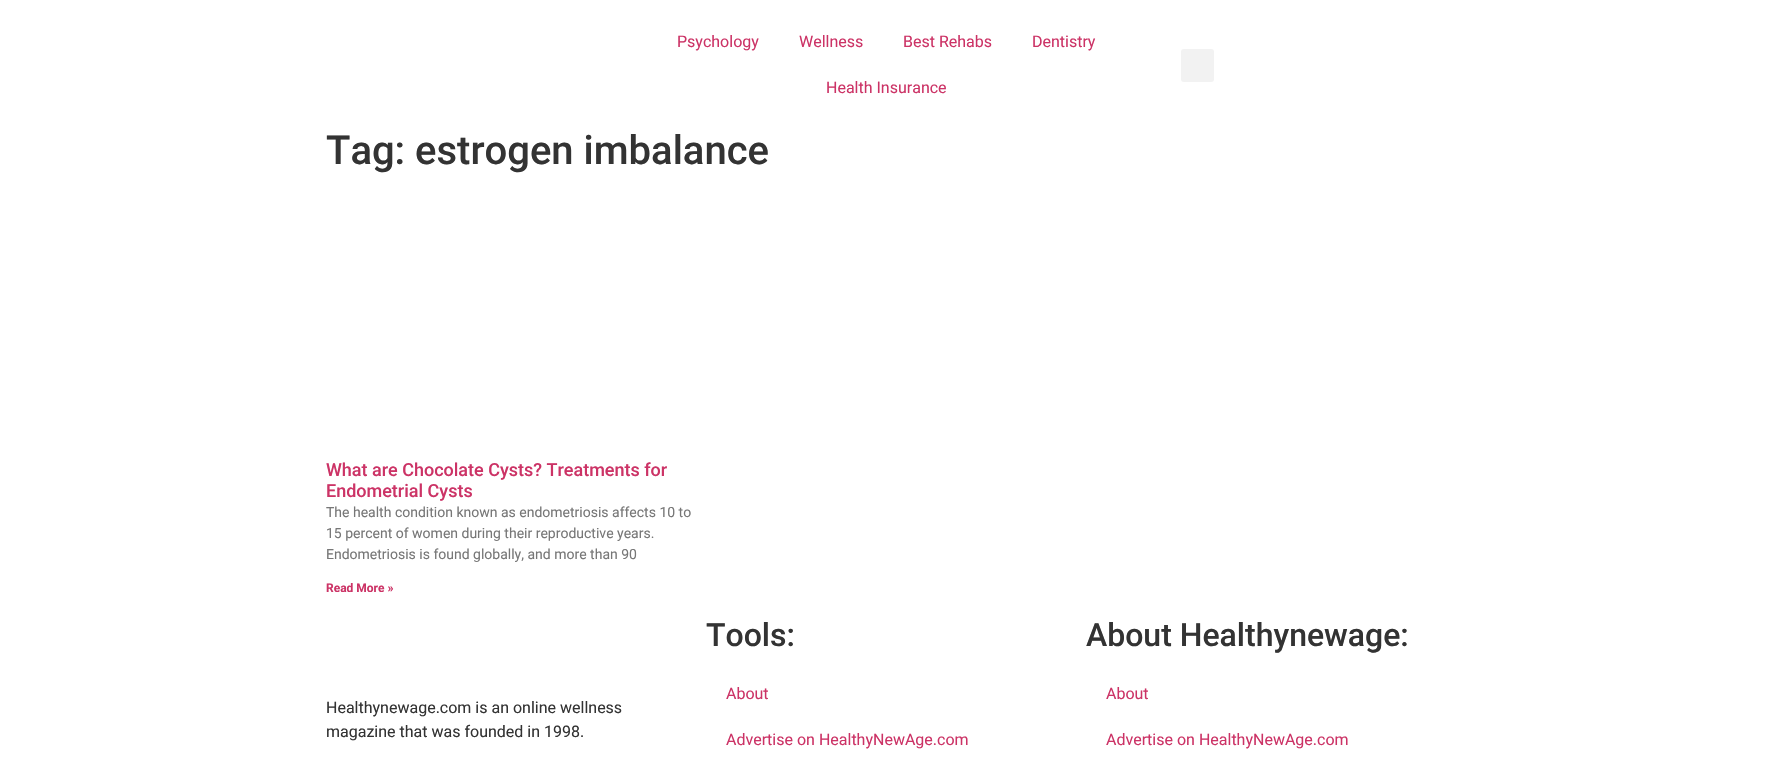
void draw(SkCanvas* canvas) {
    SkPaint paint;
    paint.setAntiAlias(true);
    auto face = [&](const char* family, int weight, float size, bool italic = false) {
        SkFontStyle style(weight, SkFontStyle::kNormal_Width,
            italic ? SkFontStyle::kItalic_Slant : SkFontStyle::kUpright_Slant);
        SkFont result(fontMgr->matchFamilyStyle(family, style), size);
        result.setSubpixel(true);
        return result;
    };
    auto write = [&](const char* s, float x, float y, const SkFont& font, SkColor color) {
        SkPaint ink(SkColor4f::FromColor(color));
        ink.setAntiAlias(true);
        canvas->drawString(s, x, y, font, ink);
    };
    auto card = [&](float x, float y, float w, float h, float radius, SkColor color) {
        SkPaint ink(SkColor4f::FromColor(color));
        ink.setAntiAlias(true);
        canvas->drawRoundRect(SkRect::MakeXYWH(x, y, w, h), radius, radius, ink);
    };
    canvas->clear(SK_ColorWHITE);
    auto kFont1 = face("Roboto", 400, 16);
    write("Psychology", 677, 47, kFont1, SkColorSetRGB(204, 51, 102));
    write("Wellness", 799, 47, kFont1, SkColorSetRGB(204, 51, 102));
    write("Best Rehabs", 903, 47, kFont1, SkColorSetRGB(204, 51, 102));
    write("Dentistry", 1032, 47, kFont1, SkColorSetRGB(204, 51, 102));
    write("Health Insurance", 826, 93, kFont1, SkColorSetRGB(204, 51, 102));
    card(1181, 49, 33, 33, 3, SkColorSetRGB(242, 242, 242));
    auto kFont2 = face("Roboto", 500, 40);
    write("Tag: estrogen imbalance", 326, 164, kFont2, SkColorSetRGB(51, 51, 51));
    auto kFont3 = face("Roboto", 500, 18);
    write("What are Chocolate Cysts? Treatments for", 326, 476, kFont3, SkColorSetRGB(204, 51, 102));
    write("Endometrial Cysts", 326, 497, kFont3, SkColorSetRGB(204, 51, 102));
    auto kFont4 = face("Roboto", 400, 14);
    write("The health condition known as endometriosis affects 10 to", 326, 517, kFont4, SkColorSetRGB(119, 119, 119));
    write("15 percent of women during their reproductive years.", 326, 538, kFont4, SkColorSetRGB(119, 119, 119));
    write("Endometriosis is found globally, and more than 90", 326, 559, kFont4, SkColorSetRGB(119, 119, 119));
    auto kFont5 = face("Roboto", 700, 12);
    write("Read More »", 326, 592, kFont5, SkColorSetRGB(204, 51, 102));
    write("Healthynewage.com is an online wellness", 326, 713, kFont1, SkColorSetRGB(51, 51, 51));
    write("magazine that was founded in 1998.", 326, 737, kFont1, SkColorSetRGB(51, 51, 51));
    auto kFont6 = face("Roboto", 500, 32);
    write("Tools:", 706, 646, kFont6, SkColorSetRGB(51, 51, 51));
    write("About", 726, 699, kFont1, SkColorSetRGB(204, 51, 102));
    write("Advertise on HealthyNewAge.com", 726, 745, kFont1, SkColorSetRGB(204, 51, 102));
    write("About Healthynewage:", 1086, 646, kFont6, SkColorSetRGB(51, 51, 51));
    write("About", 1106, 699, kFont1, SkColorSetRGB(204, 51, 102));
    write("Advertise on HealthyNewAge.com", 1106, 745, kFont1, SkColorSetRGB(204, 51, 102));
}
